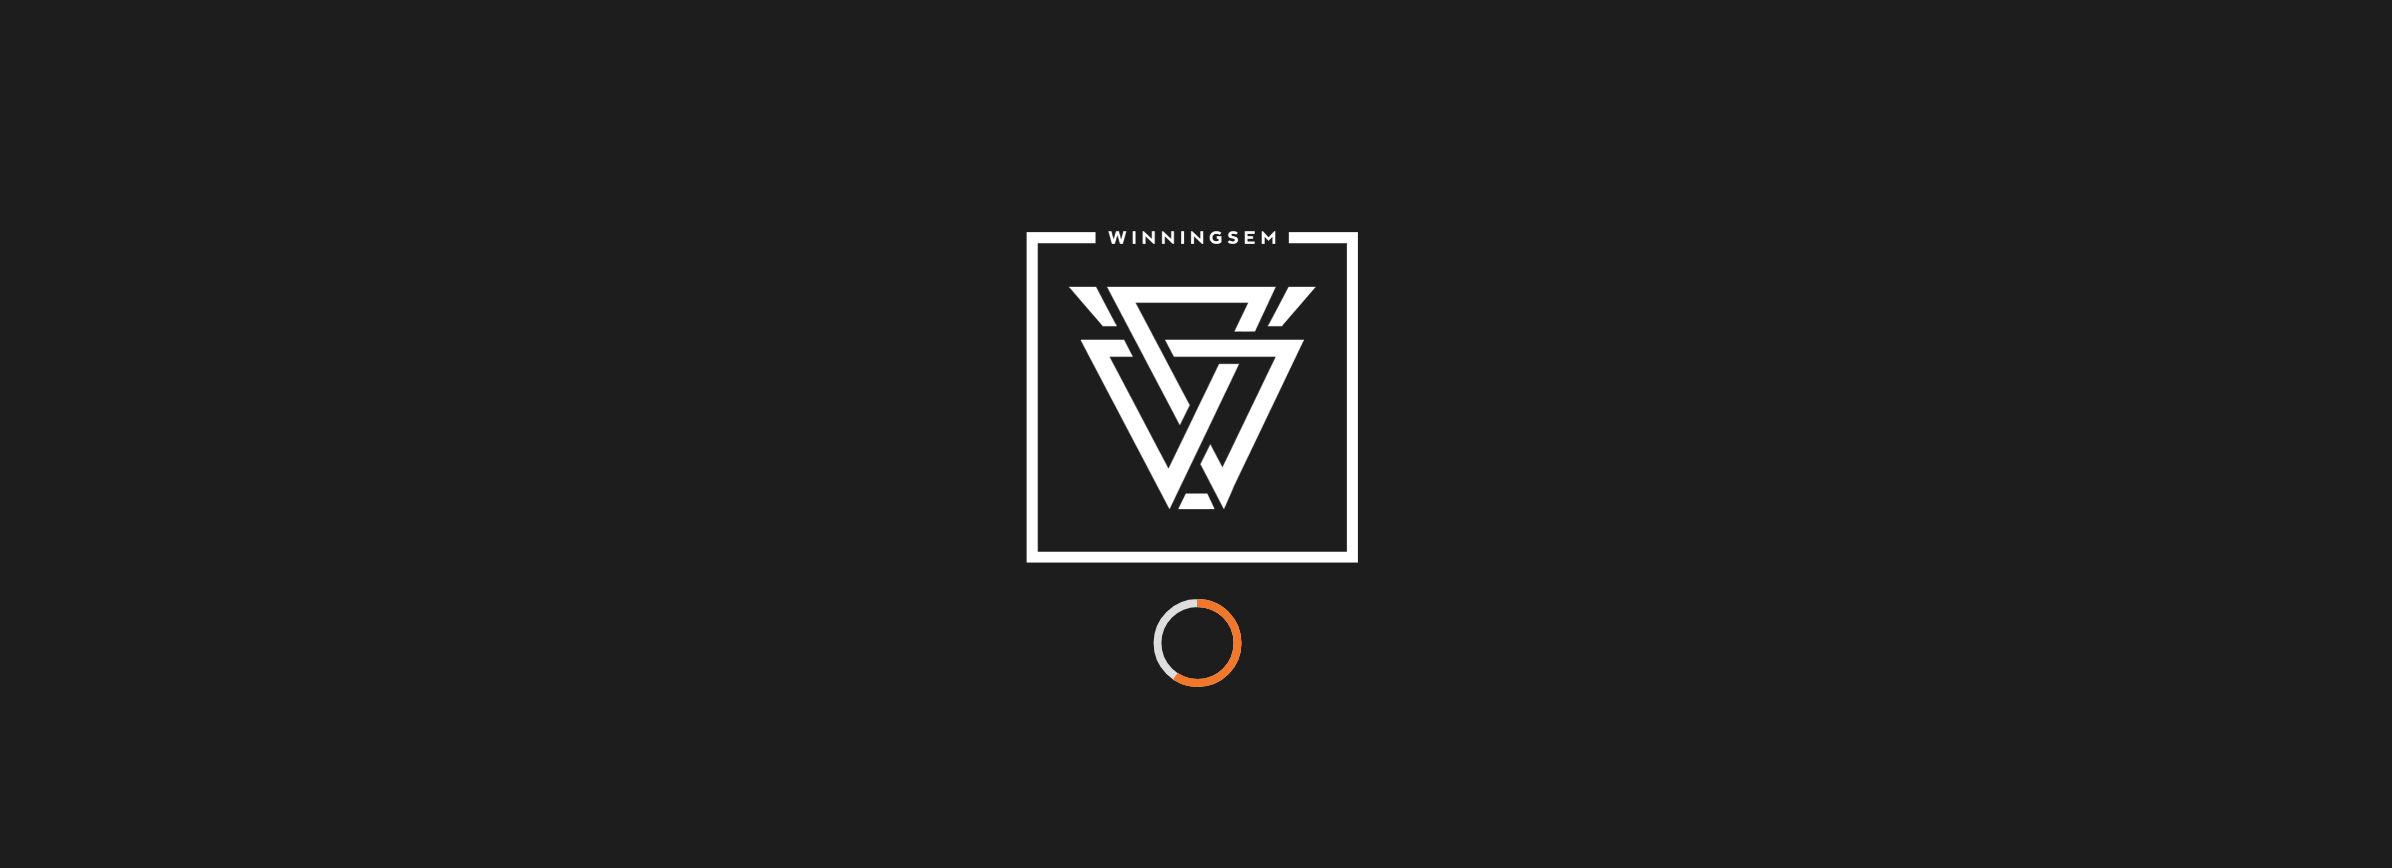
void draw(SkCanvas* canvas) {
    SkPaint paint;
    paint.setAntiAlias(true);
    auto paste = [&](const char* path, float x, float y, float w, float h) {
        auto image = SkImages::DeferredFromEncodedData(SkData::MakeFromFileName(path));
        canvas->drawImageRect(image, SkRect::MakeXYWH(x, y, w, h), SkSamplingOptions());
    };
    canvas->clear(SkColorSetRGB(29, 29, 29));
    paste("pic1.png", 1026, 231, 332, 332);
    paint.setStyle(SkPaint::kStroke_Style);
    paint.setStrokeWidth(7.9f);
    paint.setColor(SkColorSetRGB(221, 221, 221));
    canvas->drawPath(SkPathBuilder().moveTo(1197, 603).cubicTo(1220, 603, 1237.5f, 621, 1237.5f, 643).cubicTo(1237.5f, 665, 1220, 683, 1197.5f, 683).cubicTo(1175.5f, 683, 1157.5f, 665, 1157.5f, 643).cubicTo(1157.5f, 621, 1175.5f, 603, 1197.5f, 603).close().detach(), paint);
    paint.setColor(SkColorSetRGB(243, 119, 41));
    canvas->drawPath(SkPathBuilder().moveTo(1197, 603).cubicTo(1220, 603, 1237.5f, 621, 1237.5f, 643).cubicTo(1237.5f, 665, 1220, 683, 1197.5f, 683).cubicTo(1189.5f, 683, 1181.5f, 680.5f, 1175.5f, 676).detach(), paint);
}
